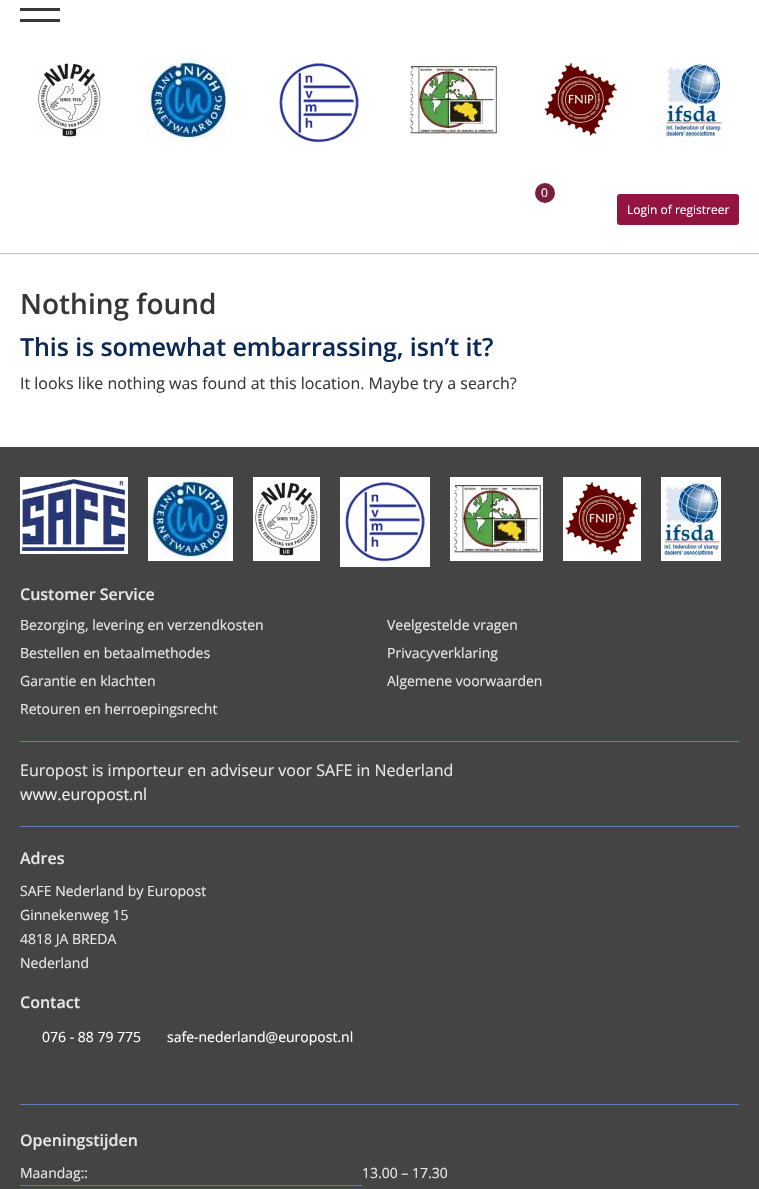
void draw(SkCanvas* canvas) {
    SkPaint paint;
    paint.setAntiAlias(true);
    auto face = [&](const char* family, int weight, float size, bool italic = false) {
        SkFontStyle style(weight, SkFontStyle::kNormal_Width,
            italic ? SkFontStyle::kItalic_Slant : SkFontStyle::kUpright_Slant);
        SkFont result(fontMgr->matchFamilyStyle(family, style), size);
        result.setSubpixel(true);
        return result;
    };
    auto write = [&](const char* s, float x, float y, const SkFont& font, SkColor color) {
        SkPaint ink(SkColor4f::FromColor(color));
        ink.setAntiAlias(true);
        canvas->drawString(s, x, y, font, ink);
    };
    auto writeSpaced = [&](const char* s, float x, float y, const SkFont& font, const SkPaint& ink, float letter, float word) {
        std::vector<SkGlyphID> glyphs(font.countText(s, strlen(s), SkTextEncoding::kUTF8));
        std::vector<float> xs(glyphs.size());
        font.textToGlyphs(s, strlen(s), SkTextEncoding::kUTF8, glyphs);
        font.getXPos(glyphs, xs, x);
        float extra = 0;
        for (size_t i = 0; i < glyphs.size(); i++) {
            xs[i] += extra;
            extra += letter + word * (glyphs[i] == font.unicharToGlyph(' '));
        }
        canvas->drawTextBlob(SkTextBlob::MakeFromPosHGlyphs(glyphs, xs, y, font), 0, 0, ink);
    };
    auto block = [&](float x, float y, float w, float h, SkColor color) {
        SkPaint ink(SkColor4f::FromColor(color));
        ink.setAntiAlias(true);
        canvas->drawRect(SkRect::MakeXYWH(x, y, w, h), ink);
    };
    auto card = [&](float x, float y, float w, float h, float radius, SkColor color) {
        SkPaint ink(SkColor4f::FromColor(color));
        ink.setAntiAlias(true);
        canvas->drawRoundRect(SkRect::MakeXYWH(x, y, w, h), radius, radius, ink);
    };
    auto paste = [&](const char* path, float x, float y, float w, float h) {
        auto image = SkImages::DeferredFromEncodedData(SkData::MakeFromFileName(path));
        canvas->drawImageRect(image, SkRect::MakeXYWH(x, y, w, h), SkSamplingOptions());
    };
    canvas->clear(SK_ColorWHITE);
    block(20, 8, 40, 3, SkColorSetRGB(55, 55, 56));
    block(20, 19, 40, 3, SkColorSetRGB(55, 55, 56));
    paste("pic1.png", 38, 63, 63, 74);
    paste("pic2.png", 146, 58, 81, 81);
    paste("pic3.png", 279, 63, 80, 80);
    paste("pic4.png", 410, 66, 88, 68);
    paste("pic5.png", 544, 63, 73, 73);
    paste("pic6.png", 663, 62, 60, 76);
    block(0, 253, 759, 1, SkColorSetRGB(196, 196, 196));
    paint.setColor(SkColorSetRGB(122, 30, 62));
    canvas->drawCircle(545, 193, 10, paint);
    auto kFont1 = face("Open Sans", 400, 12);
    write("0", 541, 197, kFont1, SK_ColorWHITE);
    card(617, 194, 122, 31, 3, SkColorSetRGB(146, 20, 64));
    write("Login of registreer", 627, 214, kFont1, SK_ColorWHITE);
    auto kFont2 = face("Open Sans", 600, 28);
    write("Nothing found", 20, 314, kFont2, SkColorSetRGB(55, 55, 56));
    auto kFont3 = face("Open Sans", 600, 25);
    paint.setColor(SkColorSetRGB(10, 41, 87));
    writeSpaced("This is somewhat embarrassing, isn’t it?", 20, 356, kFont3, paint, -0.1f, 0);
    auto kFont4 = face("Open Sans", 400, 16);
    write("It looks like nothing was found at this location. Maybe try a search?", 20, 389, kFont4, SkColorSetRGB(55, 55, 56));
    block(0, 447, 759, 742, SkColorSetRGB(68, 68, 69));
    block(20, 477, 108, 77, SK_ColorWHITE);
    paste("pic7.png", 22, 479, 103, 72);
    block(148, 477, 85, 84, SK_ColorWHITE);
    paste("pic2.png", 148, 477, 81, 81);
    block(253, 477, 67, 84, SK_ColorWHITE);
    paste("pic1.png", 255, 482, 63, 74);
    block(340, 477, 90, 90, SK_ColorWHITE);
    paste("pic3.png", 345, 482, 80, 80);
    block(450, 477, 93, 84, SK_ColorWHITE);
    paste("pic4.png", 454, 485, 88, 68);
    block(563, 477, 78, 84, SK_ColorWHITE);
    paste("pic5.png", 565, 482, 73, 73);
    block(661, 477, 60, 84, SK_ColorWHITE);
    paste("pic6.png", 661, 481, 60, 76);
    block(20, 826, 719, 1, SkColorSetRGB(96, 126, 183));
    auto kFont5 = face("Open Sans", 600, 16);
    write("Customer Service", 20, 600, kFont5, SkColorSetRGB(231, 231, 231));
    block(20, 741, 719, 1, SkColorSetRGB(96, 126, 183));
    auto kFont6 = face("Open Sans", 400, 14);
    write("Bezorging, levering en verzendkosten", 20, 630, kFont6, SkColorSetRGB(231, 231, 231));
    write("Veelgestelde vragen", 387, 630, kFont6, SkColorSetRGB(231, 231, 231));
    write("Bestellen en betaalmethodes", 20, 658, kFont6, SkColorSetRGB(231, 231, 231));
    write("Privacyverklaring", 387, 658, kFont6, SkColorSetRGB(231, 231, 231));
    write("Garantie en klachten", 20, 686, kFont6, SkColorSetRGB(231, 231, 231));
    write("Algemene voorwaarden", 387, 686, kFont6, SkColorSetRGB(231, 231, 231));
    write("Retouren en herroepingsrecht", 20, 714, kFont6, SkColorSetRGB(231, 231, 231));
    write("Europost is importeur en adviseur voor SAFE in Nederland", 20, 776, kFont4, SkColorSetRGB(231, 231, 231));
    write("www.europost.nl", 20, 800, kFont4, SkColorSetRGB(238, 238, 238));
    block(20, 1104, 719, 1, SkColorSetRGB(96, 126, 183));
    write("Adres", 20, 864, kFont5, SkColorSetRGB(231, 231, 231));
    write("SAFE Nederland by Europost", 20, 896, kFont6, SkColorSetRGB(231, 231, 231));
    write("Ginnekenweg 15", 20, 920, kFont6, SkColorSetRGB(231, 231, 231));
    write("4818 JA BREDA", 20, 944, kFont6, SkColorSetRGB(231, 231, 231));
    write("Nederland", 20, 968, kFont6, SkColorSetRGB(231, 231, 231));
    write("Contact", 20, 1008, kFont5, SkColorSetRGB(231, 231, 231));
    write("076 - 88 79 775", 42, 1042, kFont6, SK_ColorWHITE);
    write("safe-nederland@europost.nl", 167, 1042, kFont6, SK_ColorWHITE);
    write("Openingstijden", 20, 1146, kFont5, SkColorSetRGB(231, 231, 231));
    block(20, 1185, 342, 1, SkColorSetRGB(96, 126, 183));
    write("Maandag::", 20, 1178, kFont6, SkColorSetRGB(231, 231, 231));
    write("13.00 – 17.30", 362, 1178, kFont6, SkColorSetRGB(231, 231, 231));
}
